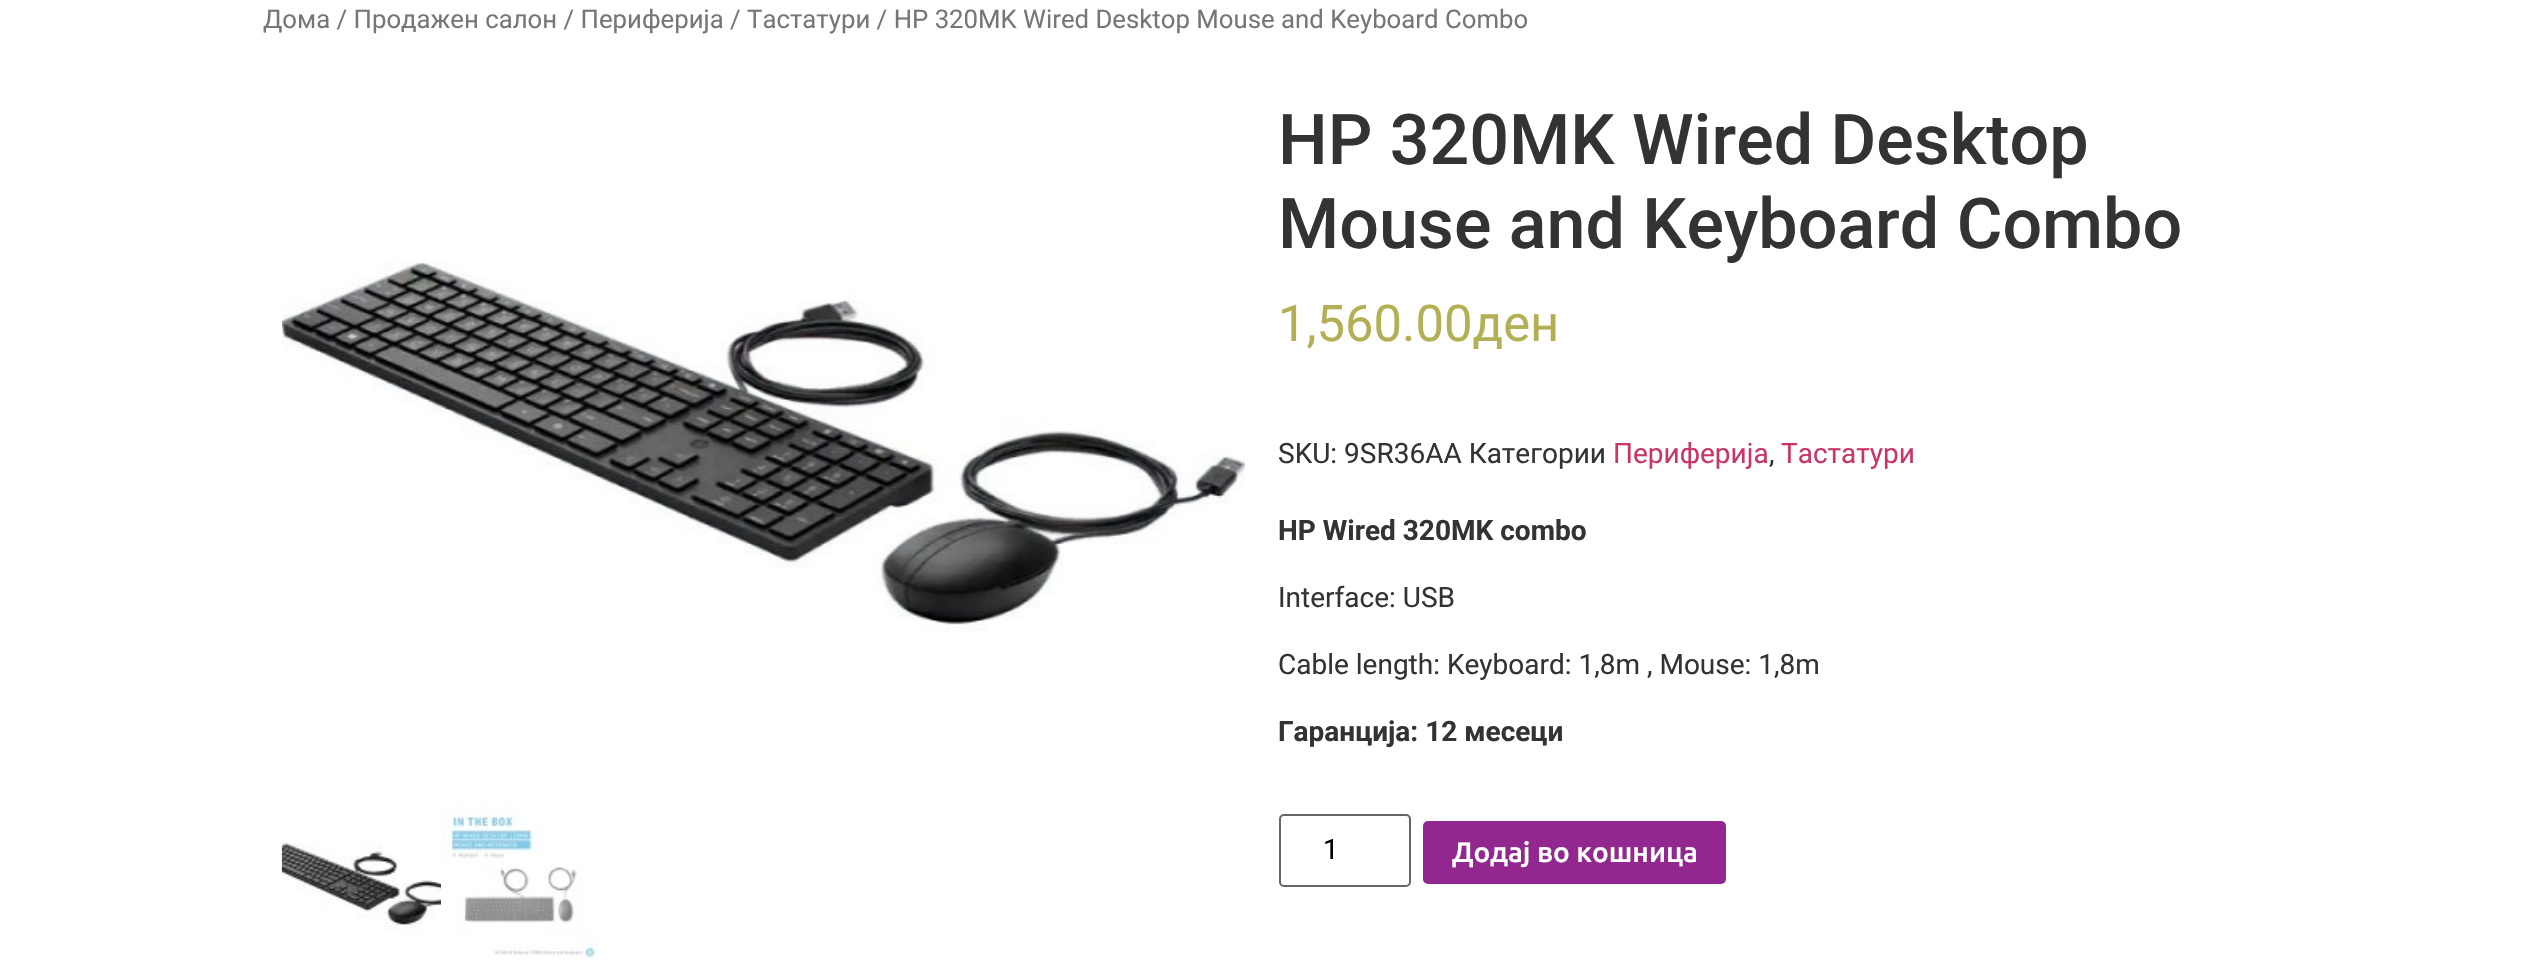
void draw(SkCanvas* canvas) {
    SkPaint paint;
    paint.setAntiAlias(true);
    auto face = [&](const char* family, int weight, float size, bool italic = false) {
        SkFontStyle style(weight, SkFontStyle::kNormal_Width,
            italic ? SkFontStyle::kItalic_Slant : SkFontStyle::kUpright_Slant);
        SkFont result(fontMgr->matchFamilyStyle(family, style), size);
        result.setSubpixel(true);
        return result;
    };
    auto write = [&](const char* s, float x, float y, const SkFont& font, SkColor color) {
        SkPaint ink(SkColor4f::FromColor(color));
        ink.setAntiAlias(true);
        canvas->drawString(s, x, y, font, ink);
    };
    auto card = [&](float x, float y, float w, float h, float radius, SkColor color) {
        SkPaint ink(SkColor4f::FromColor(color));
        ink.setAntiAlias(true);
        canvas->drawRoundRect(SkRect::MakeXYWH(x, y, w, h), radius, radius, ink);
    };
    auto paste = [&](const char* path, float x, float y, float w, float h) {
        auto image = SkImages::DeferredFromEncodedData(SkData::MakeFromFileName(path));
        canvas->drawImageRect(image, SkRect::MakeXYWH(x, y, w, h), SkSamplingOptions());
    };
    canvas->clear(SK_ColorWHITE);
    auto kFont1 = face("Roboto", 400, 25.75f);
    write("Дома / Продажен салон / Периферија / Тастатури / HP 320MK Wired Desktop Mouse and Keyboard Combo", 263, 28, kFont1, SkColorSetRGB(118, 118, 118));
    paste("pic1.png", 282, 261, 963, 371);
    paste("pic2.png", 281, 842, 160, 89);
    paste("pic3.png", 441, 804, 156, 155);
    auto kFont2 = face("Roboto", 500, 70);
    write("HP 320MK Wired Desktop", 1278, 164, kFont2, SkColorSetRGB(51, 51, 51));
    write("Mouse and Keyboard Combo", 1278, 248, kFont2, SkColorSetRGB(51, 51, 51));
    auto kFont3 = face("Roboto", 400, 50.75f);
    write("1,560.00ден", 1278, 341, kFont3, SkColorSetRGB(179, 175, 84));
    auto kFont4 = face("Roboto", 400, 28);
    write("SKU: 9SR36AA Категории", 1278, 463, kFont4, SkColorSetRGB(51, 51, 51));
    write("Периферија", 1613, 463, kFont4, SkColorSetRGB(204, 51, 102));
    write(",", 1769, 463, kFont4, SkColorSetRGB(51, 51, 51));
    write("Тастатури", 1781, 463, kFont4, SkColorSetRGB(204, 51, 102));
    auto kFont5 = face("Roboto", 700, 28);
    write("HP Wired 320MK combo", 1278, 540, kFont5, SkColorSetRGB(51, 51, 51));
    write("Interface: USB", 1278, 607, kFont4, SkColorSetRGB(51, 51, 51));
    write("Cable length: Keyboard: 1,8m , Mouse: 1,8m", 1278, 674, kFont4, SkColorSetRGB(51, 51, 51));
    write("Гаранција: 12 месеци", 1278, 741, kFont5, SkColorSetRGB(51, 51, 51));
    paint.setStyle(SkPaint::kStroke_Style);
    paint.setStrokeWidth(2);
    paint.setColor(SkColorSetRGB(102, 102, 102));
    canvas->drawRoundRect(SkRect::MakeXYWH(1280, 815, 130, 71), 4, 4, paint);
    write("1", 1323, 859, kFont4, SK_ColorBLACK);
    card(1423, 821, 303, 63, 5, SkColorSetRGB(146, 39, 144));
    auto kFont6 = face("Ubuntu", 500, 28);
    write("Додај во кошница", 1452, 862, kFont6, SK_ColorWHITE);
}
